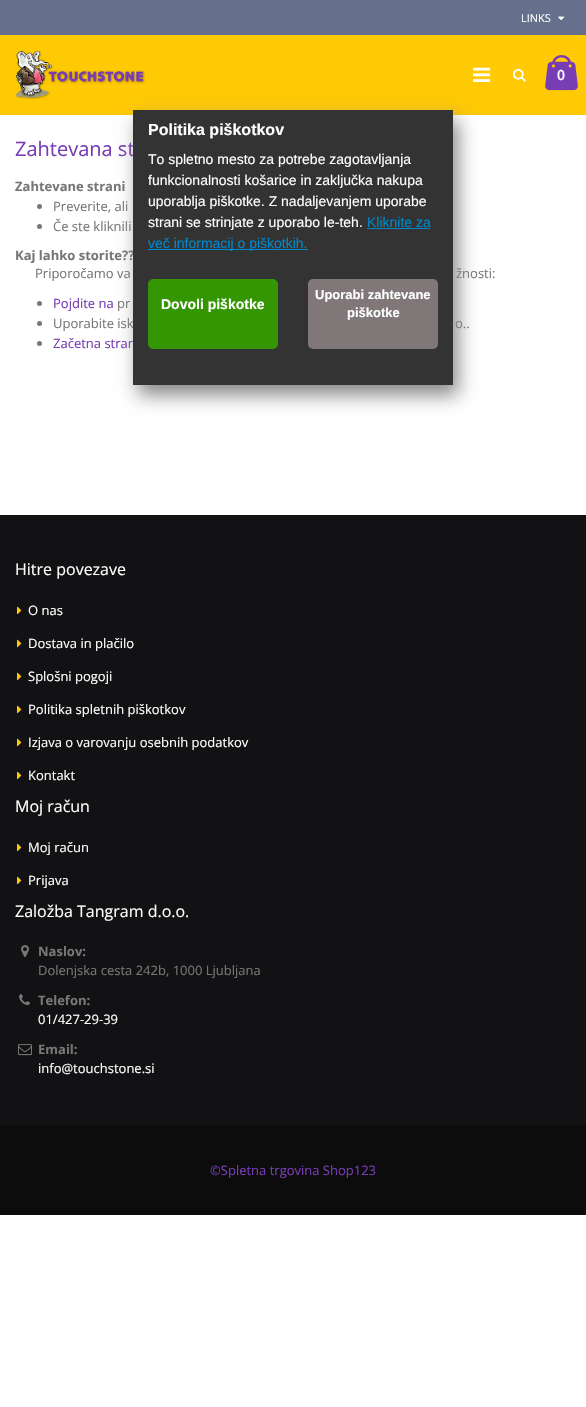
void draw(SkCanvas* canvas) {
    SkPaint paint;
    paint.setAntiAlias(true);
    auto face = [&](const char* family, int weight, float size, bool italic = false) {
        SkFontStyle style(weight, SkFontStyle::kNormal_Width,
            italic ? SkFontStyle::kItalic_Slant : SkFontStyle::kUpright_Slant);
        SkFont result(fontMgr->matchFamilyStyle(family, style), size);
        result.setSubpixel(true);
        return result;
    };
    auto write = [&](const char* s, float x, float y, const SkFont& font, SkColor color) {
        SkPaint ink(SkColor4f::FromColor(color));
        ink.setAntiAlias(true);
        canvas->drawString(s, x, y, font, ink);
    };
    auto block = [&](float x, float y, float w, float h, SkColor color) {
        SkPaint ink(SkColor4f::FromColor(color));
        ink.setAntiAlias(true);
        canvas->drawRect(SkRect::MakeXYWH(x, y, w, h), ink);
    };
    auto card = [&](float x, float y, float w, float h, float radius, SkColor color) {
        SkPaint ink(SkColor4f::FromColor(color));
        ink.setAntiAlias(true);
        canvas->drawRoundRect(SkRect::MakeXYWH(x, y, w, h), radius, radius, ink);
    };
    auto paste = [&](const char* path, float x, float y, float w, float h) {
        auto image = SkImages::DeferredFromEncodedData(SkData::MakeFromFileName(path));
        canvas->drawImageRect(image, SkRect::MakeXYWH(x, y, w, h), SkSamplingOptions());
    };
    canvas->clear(SK_ColorWHITE);
    block(0, 35, 586, 80, SkColorSetRGB(255, 201, 4));
    block(0, 0, 586, 35, SkColorSetRGB(102, 111, 140));
    auto kFont1 = face("Open Sans", 400, 11);
    write("LINKS", 521, 22, kFont1, SK_ColorWHITE);
    paste("pic1.png", 558, 16, 7, 5);
    paste("pic2.png", 15, 50, 130, 50);
    paste("pic3.png", 473, 67, 18, 15);
    paste("pic4.png", 513, 69, 13, 13);
    paste("pic5.png", 545, 55, 33, 36);
    auto kFont2 = face("Open Sans", 600, 14);
    write("0", 557, 80, kFont2, SK_ColorWHITE);
    auto kFont3 = face("Open Sans", 400, 20);
    write("Zahtevana st", 15, 156, kFont3, SkColorSetRGB(120, 60, 180));
    auto kFont4 = face("Open Sans", 700, 13);
    write("Zahtevane strani", 15, 191, kFont4, SkColorSetRGB(119, 119, 119));
    paint.setColor(SkColorSetRGB(119, 119, 119));
    canvas->drawCircle(39.5f, 206.5f, 2.5f, paint);
    auto kFont5 = face("Open Sans", 400, 13);
    write("Preverite, ali", 53, 211, kFont5, SkColorSetRGB(119, 119, 119));
    canvas->drawCircle(39.5f, 226.5f, 2.5f, paint);
    write("Če ste kliknili", 53, 231, kFont5, SkColorSetRGB(119, 119, 119));
    write("Kaj lahko storite?\077", 15, 260, kFont4, SkColorSetRGB(119, 119, 119));
    write("Priporočamo va", 35, 278, kFont5, SkColorSetRGB(119, 119, 119));
    write("žnosti:", 456, 278, kFont5, SkColorSetRGB(119, 119, 119));
    canvas->drawCircle(39.5f, 303.5f, 2.5f, paint);
    write("Pojdite na", 53, 308, kFont5, SkColorSetRGB(120, 60, 180));
    write("pr", 117, 308, kFont5, SkColorSetRGB(119, 119, 119));
    canvas->drawCircle(39.5f, 323.5f, 2.5f, paint);
    write("Uporabite isk", 53, 328, kFont5, SkColorSetRGB(119, 119, 119));
    write("o..", 455, 328, kFont5, SkColorSetRGB(119, 119, 119));
    canvas->drawCircle(39.5f, 343.5f, 2.5f, paint);
    write("Začetna stran", 53, 348, kFont5, SkColorSetRGB(120, 60, 180));
    block(0, 515, 586, 610, SkColorSetRGB(18, 18, 20));
    auto kFont6 = face("Open Sans", 400, 16);
    write("Hitre povezave", 15, 575, kFont6, SK_ColorWHITE);
    paste("pic6.png", 17, 606, 5, 9);
    write("O nas", 28, 615, kFont5, SK_ColorWHITE);
    paste("pic6.png", 17, 639, 5, 9);
    write("Dostava in plačilo", 28, 648, kFont5, SK_ColorWHITE);
    paste("pic6.png", 17, 672, 5, 9);
    write("Splošni pogoji", 28, 681, kFont5, SK_ColorWHITE);
    paste("pic6.png", 17, 705, 5, 9);
    write("Politika spletnih piškotkov", 28, 714, kFont5, SK_ColorWHITE);
    paste("pic6.png", 17, 738, 5, 9);
    write("Izjava o varovanju osebnih podatkov", 28, 747, kFont5, SK_ColorWHITE);
    paste("pic6.png", 17, 771, 5, 9);
    write("Kontakt", 28, 780, kFont5, SK_ColorWHITE);
    write("Moj račun", 15, 812, kFont6, SK_ColorWHITE);
    paste("pic6.png", 17, 843, 5, 9);
    write("Moj račun", 28, 852, kFont5, SK_ColorWHITE);
    paste("pic6.png", 17, 876, 5, 9);
    write("Prijava", 28, 885, kFont5, SK_ColorWHITE);
    write("Založba Tangram d.o.o.", 15, 917, kFont6, SK_ColorWHITE);
    paste("pic7.png", 21, 945, 8, 12);
    write("Naslov:", 38, 956, kFont4, SkColorSetRGB(119, 119, 119));
    write("Dolenjska cesta 242b, 1000 Ljubljana", 38, 975, kFont5, SkColorSetRGB(119, 119, 119));
    paste("pic8.png", 19, 994, 11, 12);
    write("Telefon:", 38, 1005, kFont4, SkColorSetRGB(119, 119, 119));
    write("01/427-29-39", 38, 1024, kFont5, SK_ColorWHITE);
    paste("pic9.png", 18, 1044, 14, 12);
    write("Email:", 38, 1054, kFont4, SkColorSetRGB(119, 119, 119));
    write("info@touchstone.si", 38, 1073, kFont5, SK_ColorWHITE);
    block(0, 1125, 586, 90, SkColorSetRGB(12, 12, 12));
    write("©Spletna trgovina Shop123", 210, 1175, kFont5, SkColorSetRGB(120, 60, 180));
    paint.setColor(SkColorSetRGB(136, 136, 136));
    paint.setMaskFilter(SkMaskFilter::MakeBlur(kNormal_SkBlurStyle, 9));
    canvas->drawRect(SkRect::MakeXYWH(138, 120, 320, 275), paint);
    paint.setMaskFilter(nullptr);
    block(133, 110, 320, 275, SkColorSetRGB(51, 51, 51));
    auto kFont7 = face("Liberation Sans", 700, 16);
    write("Politika piškotkov", 148, 135, kFont7, SK_ColorWHITE);
    auto kFont8 = face("Liberation Sans", 400, 14);
    write("To spletno mesto za potrebe zagotavljanja", 148, 164, kFont8, SK_ColorWHITE);
    write("funkcionalnosti košarice in zaključka nakupa", 148, 185, kFont8, SK_ColorWHITE);
    write("uporablja piškotke. Z nadaljevanjem uporabe", 148, 206, kFont8, SK_ColorWHITE);
    write("strani se strinjate z uporabo le-teh.", 148, 227, kFont8, SK_ColorWHITE);
    write("Kliknite za", 367, 227, kFont8, SkColorSetRGB(0, 136, 204));
    block(367, 228, 63, 1, SkColorSetRGB(0, 136, 204));
    block(148, 249, 160, 1, SkColorSetRGB(0, 136, 204));
    write("več informacij o piškotkih.", 148, 248, kFont8, SkColorSetRGB(0, 136, 204));
    paint.setColor(SkColorSetRGB(53, 150, 3));
    canvas->drawRoundRect(SkRect::MakeXYWH(148.5f, 279.5f, 129, 69), 4.5f, 4.5f, paint);
    paint.setStyle(SkPaint::kStroke_Style);
    paint.setStrokeWidth(1);
    canvas->drawRoundRect(SkRect::MakeXYWH(148.5f, 279.5f, 129, 69), 4.5f, 4.5f, paint);
    auto kFont9 = face("Liberation Sans", 700, 14);
    write("Dovoli piškotke", 161, 309, kFont9, SK_ColorWHITE);
    card(308, 279, 130, 70, 5, SkColorSetRGB(128, 120, 120));
    auto kFont10 = face("Liberation Sans", 700, 13);
    write("Uporabi zahtevane", 315, 299, kFont10, SK_ColorWHITE);
    write("piškotke", 347, 317, kFont10, SK_ColorWHITE);
}
